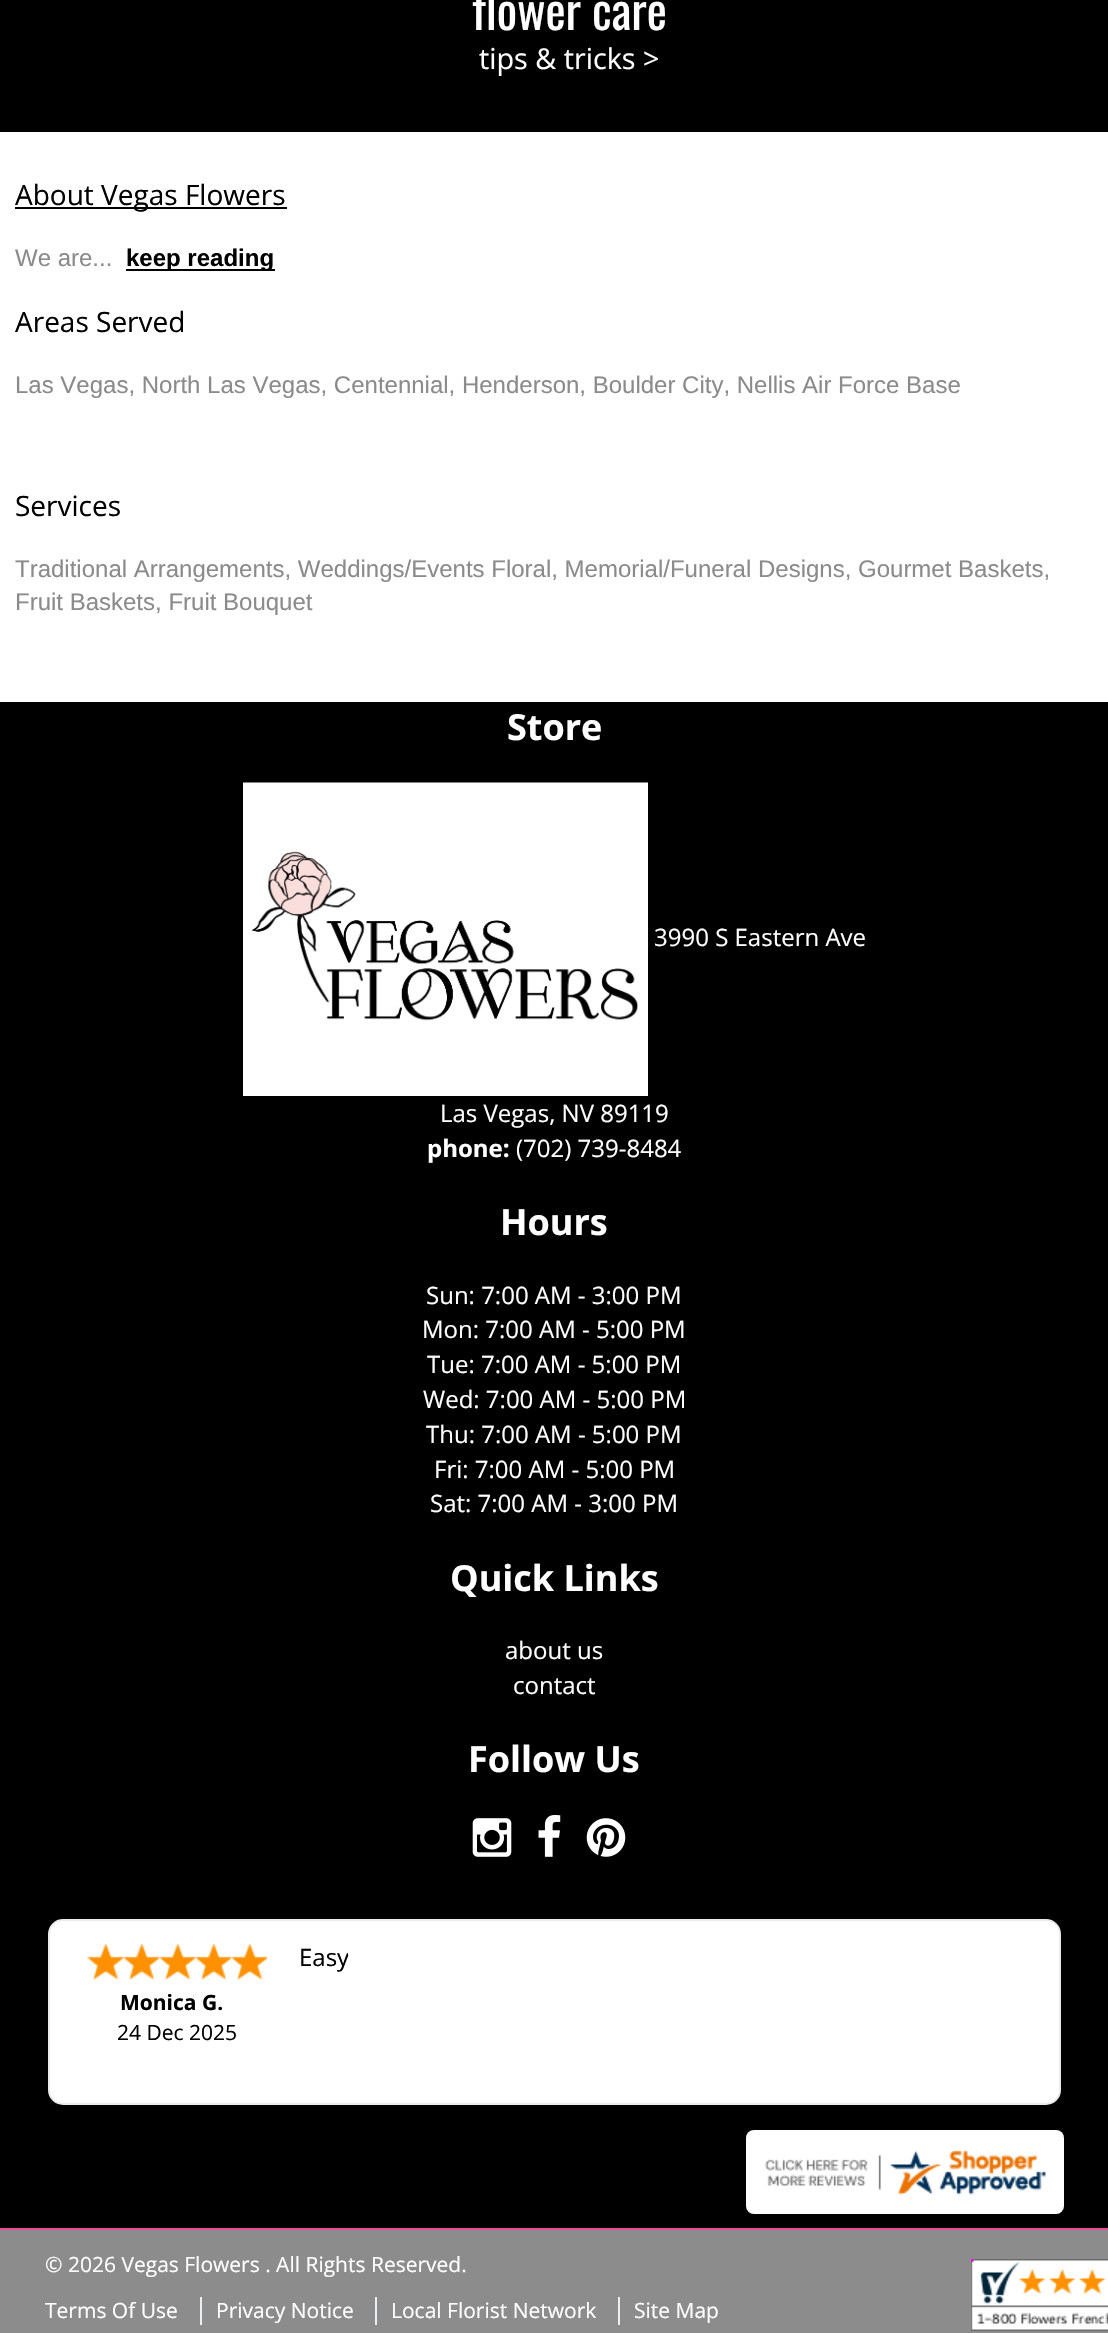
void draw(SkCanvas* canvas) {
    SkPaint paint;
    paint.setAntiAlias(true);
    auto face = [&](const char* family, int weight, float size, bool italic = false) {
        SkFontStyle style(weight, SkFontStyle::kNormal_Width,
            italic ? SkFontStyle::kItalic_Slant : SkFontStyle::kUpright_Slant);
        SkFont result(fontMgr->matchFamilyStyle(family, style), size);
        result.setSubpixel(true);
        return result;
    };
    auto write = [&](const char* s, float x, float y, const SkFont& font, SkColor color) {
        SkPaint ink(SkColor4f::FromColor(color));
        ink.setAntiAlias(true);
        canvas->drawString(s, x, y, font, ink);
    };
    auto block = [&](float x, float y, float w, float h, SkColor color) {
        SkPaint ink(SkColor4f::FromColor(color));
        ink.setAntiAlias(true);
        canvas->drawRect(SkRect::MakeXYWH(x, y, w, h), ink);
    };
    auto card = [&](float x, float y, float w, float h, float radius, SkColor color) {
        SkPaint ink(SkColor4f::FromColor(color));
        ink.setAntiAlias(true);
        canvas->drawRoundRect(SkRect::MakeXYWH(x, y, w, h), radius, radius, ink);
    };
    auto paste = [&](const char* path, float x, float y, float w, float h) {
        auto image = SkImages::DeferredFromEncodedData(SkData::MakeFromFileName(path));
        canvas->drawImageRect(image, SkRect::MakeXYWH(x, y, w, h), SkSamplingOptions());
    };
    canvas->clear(SK_ColorWHITE);
    block(0, 0, 1108, 132, SK_ColorBLACK);
    auto kFont1 = face("Oswald", 400, 48);
    write("flower care", 472, 30, kFont1, SK_ColorWHITE);
    auto kFont2 = face("Open Sans", 400, 28.75f);
    write("tips & tricks >", 479, 69, kFont2, SK_ColorWHITE);
    block(15, 207, 272, 2, SK_ColorBLACK);
    auto kFont3 = face("Open Sans", 400, 28);
    write("About Vegas Flowers", 15, 205, kFont3, SK_ColorBLACK);
    auto kFont4 = face("Liberation Sans", 400, 24);
    write("We are...", 15, 266, kFont4, SkColorSetRGB(139, 139, 139));
    block(126, 269, 149, 2, SK_ColorBLACK);
    auto kFont5 = face("Liberation Sans", 700, 24);
    write("keep reading", 126, 266, kFont5, SK_ColorBLACK);
    write("Areas Served", 15, 332, kFont3, SK_ColorBLACK);
    write("Las Vegas, North Las Vegas, Centennial, Henderson, Boulder City, Nellis Air Force Base", 15, 393, kFont4, SkColorSetRGB(139, 139, 139));
    write("Services", 15, 516, kFont3, SK_ColorBLACK);
    write("Traditional Arrangements, Weddings/Events Floral, Memorial/Funeral Designs, Gourmet Baskets,", 15, 577, kFont4, SkColorSetRGB(139, 139, 139));
    write("Fruit Baskets, Fruit Bouquet", 15, 610, kFont4, SkColorSetRGB(139, 139, 139));
    block(0, 702, 1108, 1526, SK_ColorBLACK);
    auto kFont6 = face("Open Sans", 700, 36);
    write("Store", 507, 740, kFont6, SK_ColorWHITE);
    paste("pic1.png", 243, 782, 405, 314);
    auto kFont7 = face("Open Sans", 400, 24);
    write("3990 S Eastern Ave", 654, 946, kFont7, SK_ColorWHITE);
    write("Las Vegas, NV 89119", 440, 1122, kFont7, SK_ColorWHITE);
    auto kFont8 = face("Open Sans", 700, 24);
    write("phone:", 427, 1157, kFont8, SK_ColorWHITE);
    write("(702) 739-8484", 516, 1157, kFont7, SK_ColorWHITE);
    write("Hours", 500, 1235, kFont6, SK_ColorWHITE);
    write("Sun: 7:00 AM - 3:00 PM", 426, 1304, kFont7, SK_ColorWHITE);
    write("Mon: 7:00 AM - 5:00 PM", 422, 1338, kFont7, SK_ColorWHITE);
    write("Tue: 7:00 AM - 5:00 PM", 427, 1373, kFont7, SK_ColorWHITE);
    write("Wed: 7:00 AM - 5:00 PM", 423, 1408, kFont7, SK_ColorWHITE);
    write("Thu: 7:00 AM - 5:00 PM", 426, 1443, kFont7, SK_ColorWHITE);
    write("Fri: 7:00 AM - 5:00 PM", 434, 1478, kFont7, SK_ColorWHITE);
    write("Sat: 7:00 AM - 3:00 PM", 430, 1512, kFont7, SK_ColorWHITE);
    write("Quick Links", 450, 1591, kFont6, SK_ColorWHITE);
    write("about us", 505, 1659, kFont7, SK_ColorWHITE);
    write("contact", 513, 1694, kFont7, SK_ColorWHITE);
    write("Follow Us", 468, 1772, kFont6, SK_ColorWHITE);
    paste("pic2.png", 472, 1818, 40, 39);
    paste("pic3.png", 538, 1815, 23, 42);
    paste("pic4.png", 586, 1818, 40, 39);
    paint.setColor(SK_ColorWHITE);
    canvas->drawRoundRect(SkRect::MakeXYWH(49, 1920, 1011, 184), 14, 14, paint);
    paint.setStyle(SkPaint::kStroke_Style);
    paint.setStrokeWidth(2);
    paint.setColor(SkColorSetRGB(235, 235, 235));
    canvas->drawRoundRect(SkRect::MakeXYWH(49, 1920, 1011, 184), 14, 14, paint);
    write("Easy", 299, 1966, kFont7, SK_ColorBLACK);
    block(348, 1953, 1, 2, SK_ColorWHITE);
    paste("pic5.png", 87, 1943, 36, 37);
    paste("pic5.png", 123, 1943, 36, 37);
    paste("pic5.png", 159, 1943, 36, 37);
    paste("pic5.png", 195, 1943, 36, 37);
    paste("pic5.png", 231, 1943, 36, 37);
    auto kFont9 = face("Open Sans", 700, 21);
    write("Monica G.", 120, 2010, kFont9, SK_ColorBLACK);
    auto kFont10 = face("Open Sans", 400, 21);
    write("24 Dec 2025", 117, 2040, kFont10, SK_ColorBLACK);
    card(746, 2130, 318, 84, 8, SK_ColorWHITE);
    paste("pic6.png", 764, 2150, 282, 45);
    block(0, 2230, 1108, 103, SkColorSetRGB(140, 140, 140));
    paste("pic7.png", 971, 2259, 137, 72);
    block(0, 2228, 1108, 2, SkColorSetRGB(238, 70, 154));
    write("© 2026 Vegas Flowers . All Rights Reserved.", 45, 2272, kFont10, SK_ColorWHITE);
    write("Terms Of Use", 45, 2318, kFont10, SK_ColorWHITE);
    block(200, 2297, 2, 28, SkColorSetRGB(236, 239, 242));
    write("Privacy Notice", 216, 2318, kFont10, SK_ColorWHITE);
    block(375, 2297, 2, 28, SkColorSetRGB(236, 239, 242));
    write("Local Florist Network", 391, 2318, kFont10, SK_ColorWHITE);
    block(618, 2297, 2, 28, SkColorSetRGB(236, 239, 242));
    write("Site Map", 634, 2318, kFont10, SK_ColorWHITE);
}
